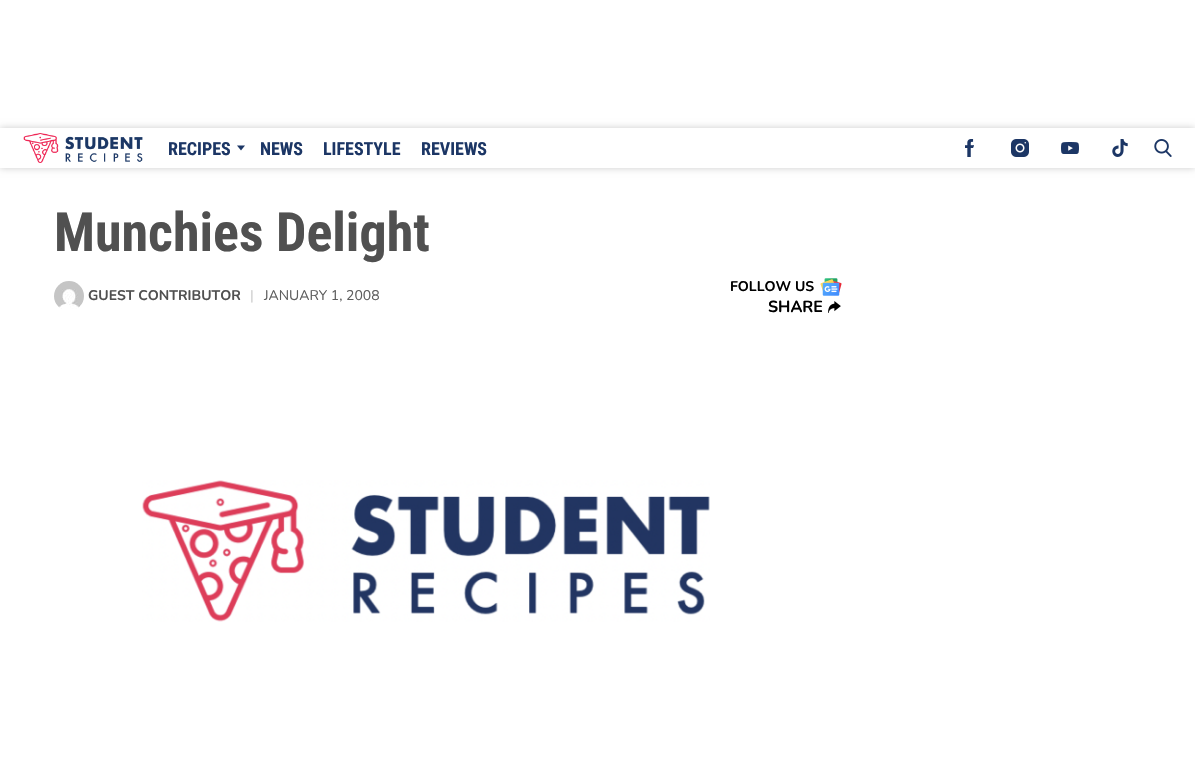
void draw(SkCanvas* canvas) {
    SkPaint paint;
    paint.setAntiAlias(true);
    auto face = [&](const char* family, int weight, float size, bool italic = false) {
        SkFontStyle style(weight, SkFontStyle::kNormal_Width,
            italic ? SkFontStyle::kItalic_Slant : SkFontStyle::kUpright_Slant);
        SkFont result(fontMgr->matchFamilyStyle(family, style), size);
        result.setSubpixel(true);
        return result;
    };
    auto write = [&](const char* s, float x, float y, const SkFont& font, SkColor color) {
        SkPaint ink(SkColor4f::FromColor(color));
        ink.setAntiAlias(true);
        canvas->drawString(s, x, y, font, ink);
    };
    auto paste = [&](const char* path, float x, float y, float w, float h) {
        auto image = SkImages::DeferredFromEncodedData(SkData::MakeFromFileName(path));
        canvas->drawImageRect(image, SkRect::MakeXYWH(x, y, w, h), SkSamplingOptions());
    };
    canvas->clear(SK_ColorWHITE);
    canvas->save();
    canvas->clipPath(SkPathBuilder(SkPathFillType::kEvenOdd).moveTo(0, 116).lineTo(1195, 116).lineTo(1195, 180).lineTo(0, 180).close().moveTo(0, 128).lineTo(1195, 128).lineTo(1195, 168).lineTo(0, 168).close().detach(), true);
    paint.setColor(SkColorSetARGB(51, 0, 0, 0));
    paint.setMaskFilter(SkMaskFilter::MakeBlur(kNormal_SkBlurStyle, 3.5f));
    canvas->drawRect(SkRect::MakeXYWH(0, 128, 1195, 40), paint);
    paint.setMaskFilter(nullptr);
    canvas->restore();
    paste("pic1.png", 23, 133, 120, 30);
    auto kFont1 = face("Roboto Condensed", 700, 18);
    write("RECIPES", 168, 155, kFont1, SkColorSetRGB(28, 54, 101));
    paint.setColor(SkColorSetRGB(28, 54, 101));
    canvas->drawPath(SkPathBuilder().moveTo(237, 145.5f).lineTo(245, 145.5f).lineTo(241, 150.5f).close().detach(), paint);
    write("NEWS", 260, 155, kFont1, SkColorSetRGB(28, 54, 101));
    write("LIFESTYLE", 323, 155, kFont1, SkColorSetRGB(28, 54, 101));
    write("REVIEWS", 421, 155, kFont1, SkColorSetRGB(28, 54, 101));
    paste("pic2.png", 965, 139, 9, 18);
    paste("pic3.png", 1011, 139, 18, 18);
    paste("pic4.png", 1061, 142, 18, 12);
    paste("pic5.png", 1112, 139, 16, 18);
    paste("pic6.png", 1154, 139, 18, 18);
    auto kFont2 = face("Roboto Condensed", 700, 54);
    write("Munchies Delight", 54, 251, kFont2, SkColorSetRGB(80, 80, 80));
    paste("pic7.png", 54, 281, 30, 28);
    auto kFont3 = face("Nunito", 700, 14);
    write("GUEST CONTRIBUTOR", 88, 300, kFont3, SkColorSetRGB(80, 80, 80));
    auto kFont4 = face("Nunito", 400, 14);
    write("|", 250, 300, kFont4, SkColorSetRGB(206, 206, 206));
    write("JANUARY 1, 2008", 264, 300, kFont4, SkColorSetRGB(94, 94, 94));
    write("FOLLOW US", 730, 291, kFont3, SK_ColorBLACK);
    paste("pic8.png", 820, 278, 22, 18);
    auto kFont5 = face("Nunito", 700, 16);
    write("SHARE", 768, 312, kFont5, SK_ColorBLACK);
    paste("pic9.png", 828, 301, 13, 12);
    paste("pic10.png", 142, 480, 568, 142);
}
